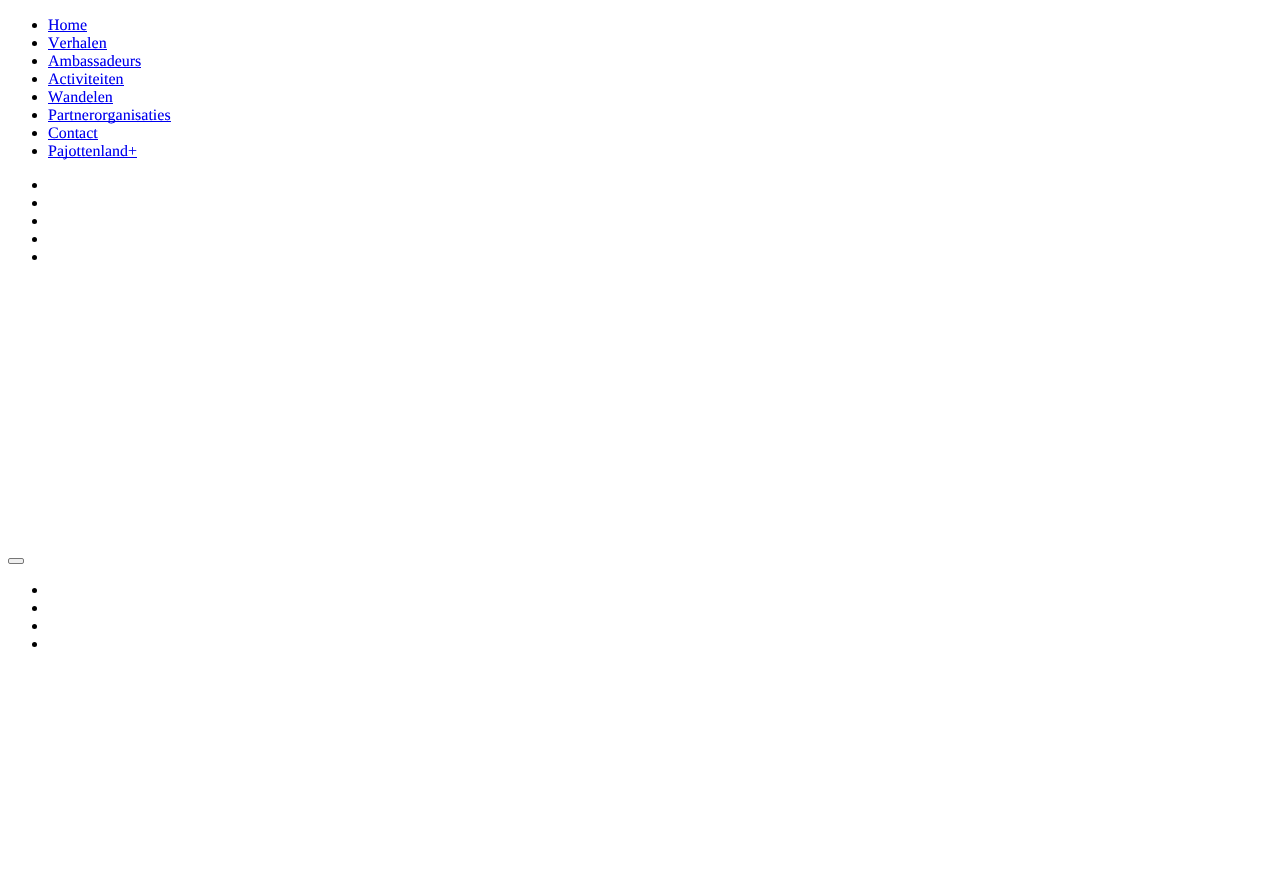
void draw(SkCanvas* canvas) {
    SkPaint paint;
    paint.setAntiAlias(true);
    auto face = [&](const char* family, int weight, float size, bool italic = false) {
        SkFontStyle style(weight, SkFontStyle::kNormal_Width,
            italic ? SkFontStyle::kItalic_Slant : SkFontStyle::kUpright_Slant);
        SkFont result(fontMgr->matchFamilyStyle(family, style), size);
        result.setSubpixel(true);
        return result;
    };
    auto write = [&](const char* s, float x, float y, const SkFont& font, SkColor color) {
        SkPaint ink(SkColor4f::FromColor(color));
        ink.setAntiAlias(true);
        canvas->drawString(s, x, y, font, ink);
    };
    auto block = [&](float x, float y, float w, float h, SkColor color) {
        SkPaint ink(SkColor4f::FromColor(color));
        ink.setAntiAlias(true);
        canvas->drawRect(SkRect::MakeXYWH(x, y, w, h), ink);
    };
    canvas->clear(SK_ColorWHITE);
    paint.setColor(SK_ColorBLACK);
    canvas->drawCircle(34.5f, 25.5f, 2.5f, paint);
    auto kFont1 = face("Liberation Serif", 400, 16);
    write("Home", 48, 30, kFont1, SkColorSetRGB(0, 0, 238));
    block(48, 31, 39, 1, SkColorSetRGB(0, 0, 238));
    canvas->drawCircle(34.5f, 43.5f, 2.5f, paint);
    write("Verhalen", 48, 48, kFont1, SkColorSetRGB(0, 0, 238));
    block(48, 49, 59, 1, SkColorSetRGB(0, 0, 238));
    canvas->drawCircle(34.5f, 61.5f, 2.5f, paint);
    write("Ambassadeurs", 48, 66, kFont1, SkColorSetRGB(0, 0, 238));
    block(48, 67, 93, 1, SkColorSetRGB(0, 0, 238));
    canvas->drawCircle(34.5f, 79.5f, 2.5f, paint);
    write("Activiteiten", 48, 84, kFont1, SkColorSetRGB(0, 0, 238));
    block(48, 85, 76, 1, SkColorSetRGB(0, 0, 238));
    canvas->drawCircle(34.5f, 97.5f, 2.5f, paint);
    write("Wandelen", 48, 102, kFont1, SkColorSetRGB(0, 0, 238));
    block(48, 103, 65, 1, SkColorSetRGB(0, 0, 238));
    canvas->drawCircle(34.5f, 115.5f, 2.5f, paint);
    block(48, 121, 123, 1, SkColorSetRGB(0, 0, 238));
    write("Partnerorganisaties", 48, 120, kFont1, SkColorSetRGB(0, 0, 238));
    canvas->drawCircle(34.5f, 133.5f, 2.5f, paint);
    write("Contact", 48, 138, kFont1, SkColorSetRGB(0, 0, 238));
    block(48, 139, 50, 1, SkColorSetRGB(0, 0, 238));
    canvas->drawCircle(34.5f, 151.5f, 2.5f, paint);
    block(48, 157, 89, 1, SkColorSetRGB(0, 0, 238));
    write("Pajottenland+", 48, 156, kFont1, SkColorSetRGB(0, 0, 238));
    canvas->drawCircle(34.5f, 185.5f, 2.5f, paint);
    canvas->drawCircle(34.5f, 203.5f, 2.5f, paint);
    canvas->drawCircle(34.5f, 221.5f, 2.5f, paint);
    canvas->drawCircle(34.5f, 239.5f, 2.5f, paint);
    canvas->drawCircle(34.5f, 257.5f, 2.5f, paint);
    paint.setColor(SkColorSetRGB(239, 239, 239));
    canvas->drawRoundRect(SkRect::MakeXYWH(8.5f, 558.5f, 15, 5), 1.5f, 1.5f, paint);
    paint.setStyle(SkPaint::kStroke_Style);
    paint.setStrokeWidth(1);
    paint.setColor(SkColorSetRGB(118, 118, 118));
    canvas->drawRoundRect(SkRect::MakeXYWH(8.5f, 558.5f, 15, 5), 1.5f, 1.5f, paint);
    paint.setStyle(SkPaint::kFill_Style);
    paint.setColor(SK_ColorBLACK);
    canvas->drawCircle(34.5f, 590.5f, 2.5f, paint);
    canvas->drawCircle(34.5f, 608.5f, 2.5f, paint);
    canvas->drawCircle(34.5f, 626.5f, 2.5f, paint);
    canvas->drawCircle(34.5f, 644.5f, 2.5f, paint);
}
